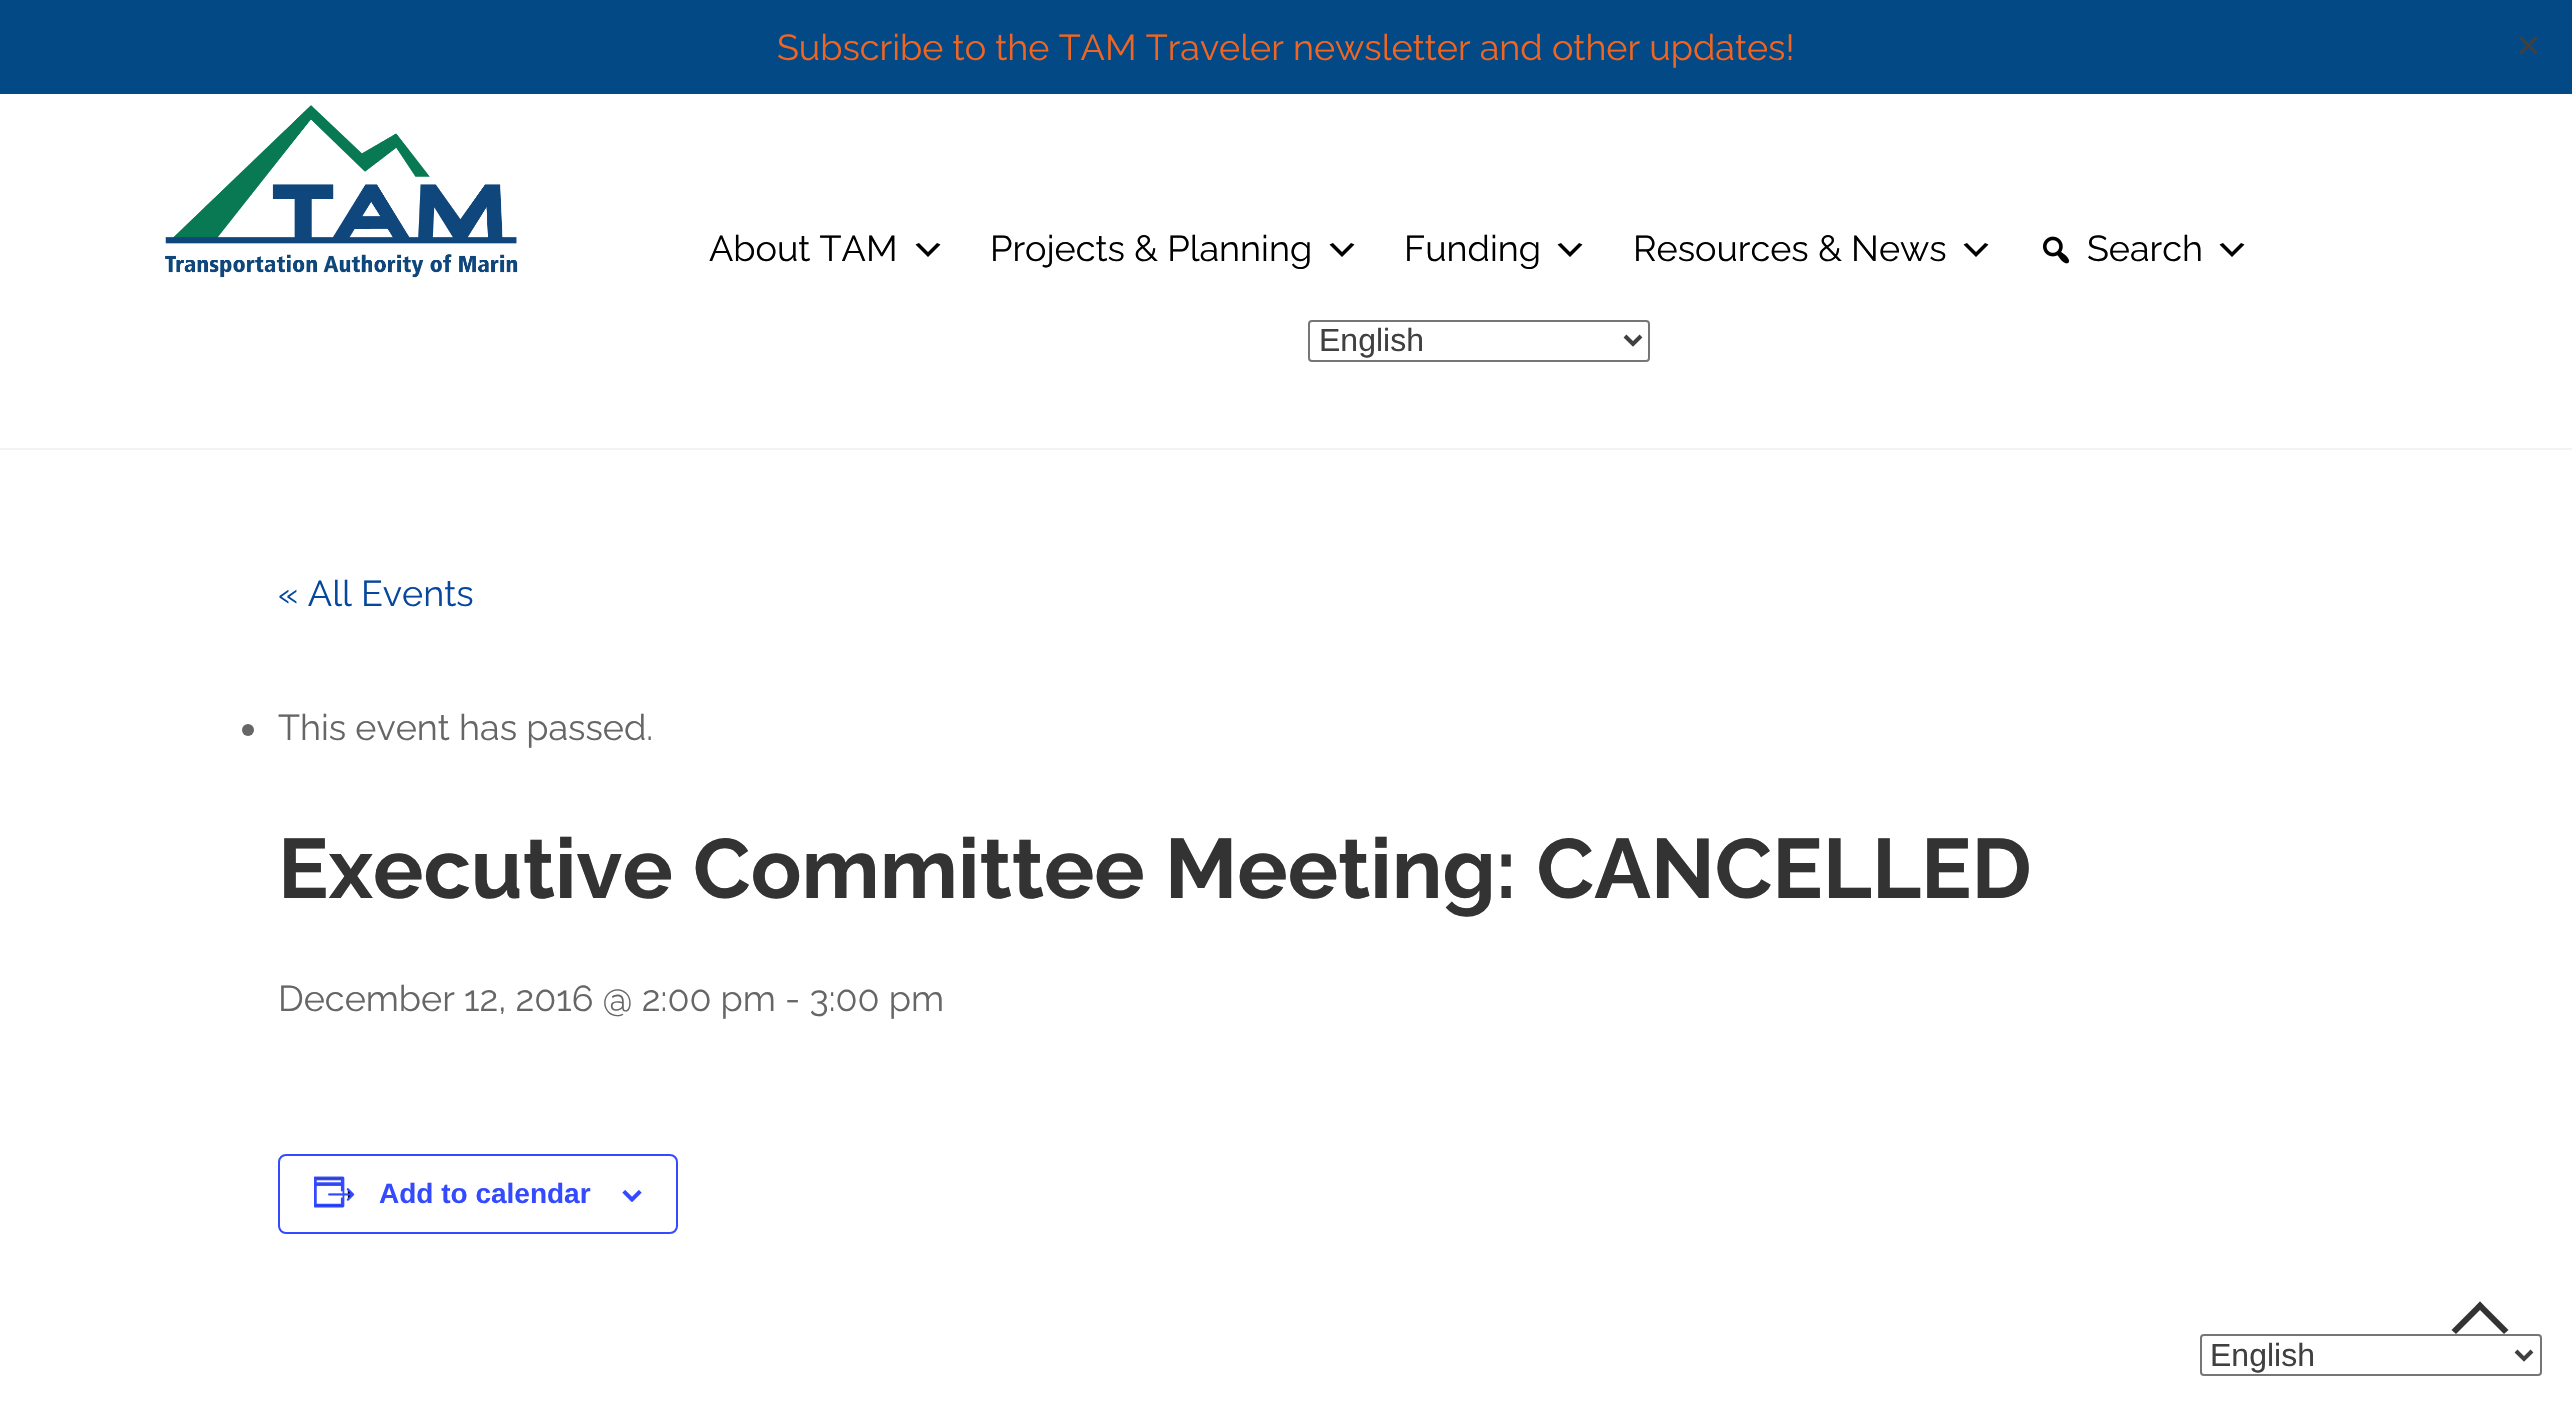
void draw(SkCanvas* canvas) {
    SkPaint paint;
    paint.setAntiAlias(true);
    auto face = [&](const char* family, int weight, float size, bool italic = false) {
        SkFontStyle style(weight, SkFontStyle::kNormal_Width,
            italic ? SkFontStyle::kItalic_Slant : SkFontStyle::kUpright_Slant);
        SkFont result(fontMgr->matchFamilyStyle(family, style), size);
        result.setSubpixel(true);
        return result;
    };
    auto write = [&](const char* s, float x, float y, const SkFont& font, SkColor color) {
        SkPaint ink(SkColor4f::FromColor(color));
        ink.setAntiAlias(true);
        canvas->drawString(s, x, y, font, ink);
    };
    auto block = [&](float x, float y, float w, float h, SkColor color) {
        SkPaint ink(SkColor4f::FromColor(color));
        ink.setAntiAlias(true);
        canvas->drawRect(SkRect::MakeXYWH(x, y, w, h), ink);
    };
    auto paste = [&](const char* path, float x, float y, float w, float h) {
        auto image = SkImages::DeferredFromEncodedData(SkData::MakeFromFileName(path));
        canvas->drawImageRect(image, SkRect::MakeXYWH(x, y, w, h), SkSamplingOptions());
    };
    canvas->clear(SK_ColorWHITE);
    block(0, 0, 2572, 94, SkColorSetRGB(2, 73, 133));
    auto kFont1 = face("Raleway", 400, 36);
    write("Subscribe to the TAM Traveler newsletter and other updates!", 777, 60, kFont1, SkColorSetRGB(241, 101, 33));
    auto kFont2 = face("DejaVu Sans", 400, 32);
    write("✕", 2515, 57, kFont2, SkColorSetRGB(64, 64, 64));
    block(0, 448, 2572, 2, SkColorSetRGB(243, 243, 243));
    paste("pic1.png", 165, 105, 353, 173);
    write("About TAM", 709, 261, kFont1, SK_ColorBLACK);
    paint.setColor(SK_ColorBLACK);
    canvas->drawPath(SkPathBuilder().moveTo(919, 243).lineTo(928, 252).lineTo(937, 243).lineTo(940.5f, 244.5f).lineTo(928, 257).lineTo(915.5f, 244.5f).close().detach(), paint);
    write("Projects & Planning", 990, 261, kFont1, SK_ColorBLACK);
    canvas->drawPath(SkPathBuilder().moveTo(1333, 243).lineTo(1342, 252).lineTo(1351, 243).lineTo(1354.5f, 244.5f).lineTo(1342, 257).lineTo(1329.5f, 244.5f).close().detach(), paint);
    write("Funding", 1404, 261, kFont1, SK_ColorBLACK);
    canvas->drawPath(SkPathBuilder().moveTo(1561, 243).lineTo(1570, 252).lineTo(1579, 243).lineTo(1582.5f, 244.5f).lineTo(1570, 257).lineTo(1557.5f, 244.5f).close().detach(), paint);
    write("Resources & News", 1633, 261, kFont1, SK_ColorBLACK);
    canvas->drawPath(SkPathBuilder().moveTo(1967, 243).lineTo(1976, 252).lineTo(1985, 243).lineTo(1988.5f, 244.5f).lineTo(1976, 257).lineTo(1963.5f, 244.5f).close().detach(), paint);
    paste("pic2.png", 2043, 236, 26, 28);
    write("Search", 2087, 261, kFont1, SK_ColorBLACK);
    canvas->drawPath(SkPathBuilder().moveTo(2223, 243).lineTo(2232, 252).lineTo(2241, 243).lineTo(2244.5f, 244.5f).lineTo(2232, 257).lineTo(2219.5f, 244.5f).close().detach(), paint);
    paint.setStyle(SkPaint::kStroke_Style);
    paint.setStrokeWidth(2);
    paint.setColor(SkColorSetRGB(118, 118, 118));
    canvas->drawRoundRect(SkRect::MakeXYWH(1309, 321, 340, 40), 3, 3, paint);
    paint.setStrokeWidth(4);
    paint.setColor(SkColorSetRGB(64, 64, 64));
    canvas->drawPath(SkPathBuilder().moveTo(1625, 336).lineTo(1633, 344).lineTo(1641, 336).detach(), paint);
    auto kFont3 = face("Liberation Sans", 400, 32);
    write("English", 1319, 351, kFont3, SkColorSetRGB(64, 64, 64));
    write("« All Events", 278, 606, kFont1, SkColorSetRGB(5, 72, 157));
    paint.setStyle(SkPaint::kFill_Style);
    paint.setColor(SkColorSetRGB(102, 102, 102));
    canvas->drawCircle(248, 730, 6, paint);
    write("This event has passed.", 278, 740, kFont1, SkColorSetRGB(102, 102, 102));
    auto kFont4 = face("Raleway", 700, 84);
    write("Executive Committee Meeting: CANCELLED", 278, 898, kFont4, SkColorSetRGB(51, 51, 51));
    write("December 12, 2016 @ 2:00 pm - 3:00 pm", 278, 1011, kFont1, SkColorSetRGB(102, 102, 102));
    paint.setStyle(SkPaint::kStroke_Style);
    paint.setStrokeWidth(2);
    paint.setColor(SkColorSetRGB(51, 74, 255));
    canvas->drawRoundRect(SkRect::MakeXYWH(279, 1155, 398, 78), 7, 7, paint);
    paste("pic3.png", 314, 1176, 41, 32);
    auto kFont5 = face("Liberation Sans", 700, 28);
    write("Add to calendar", 379, 1203, kFont5, SkColorSetRGB(51, 74, 255));
    paste("pic4.png", 622, 1190, 20, 12);
    paint.setStyle(SkPaint::kFill_Style);
    paint.setColor(SkColorSetRGB(51, 51, 51));
    canvas->drawPath(SkPathBuilder().moveTo(2480, 1301.5f).lineTo(2508.5f, 1330).lineTo(2504, 1334).lineTo(2476, 1306).close().detach(), paint);
    canvas->drawPath(SkPathBuilder().moveTo(2480, 1301.5f).lineTo(2484, 1306).lineTo(2456, 1334).lineTo(2451.5f, 1330).close().detach(), paint);
    paint.setStyle(SkPaint::kStroke_Style);
    paint.setColor(SkColorSetRGB(118, 118, 118));
    canvas->drawRoundRect(SkRect::MakeXYWH(2201, 1335, 340, 40), 3, 3, paint);
    paint.setStrokeWidth(4);
    paint.setColor(SkColorSetRGB(64, 64, 64));
    canvas->drawPath(SkPathBuilder().moveTo(2516, 1351).lineTo(2524, 1359).lineTo(2532, 1351).detach(), paint);
    write("English", 2210, 1366, kFont3, SkColorSetRGB(64, 64, 64));
}
